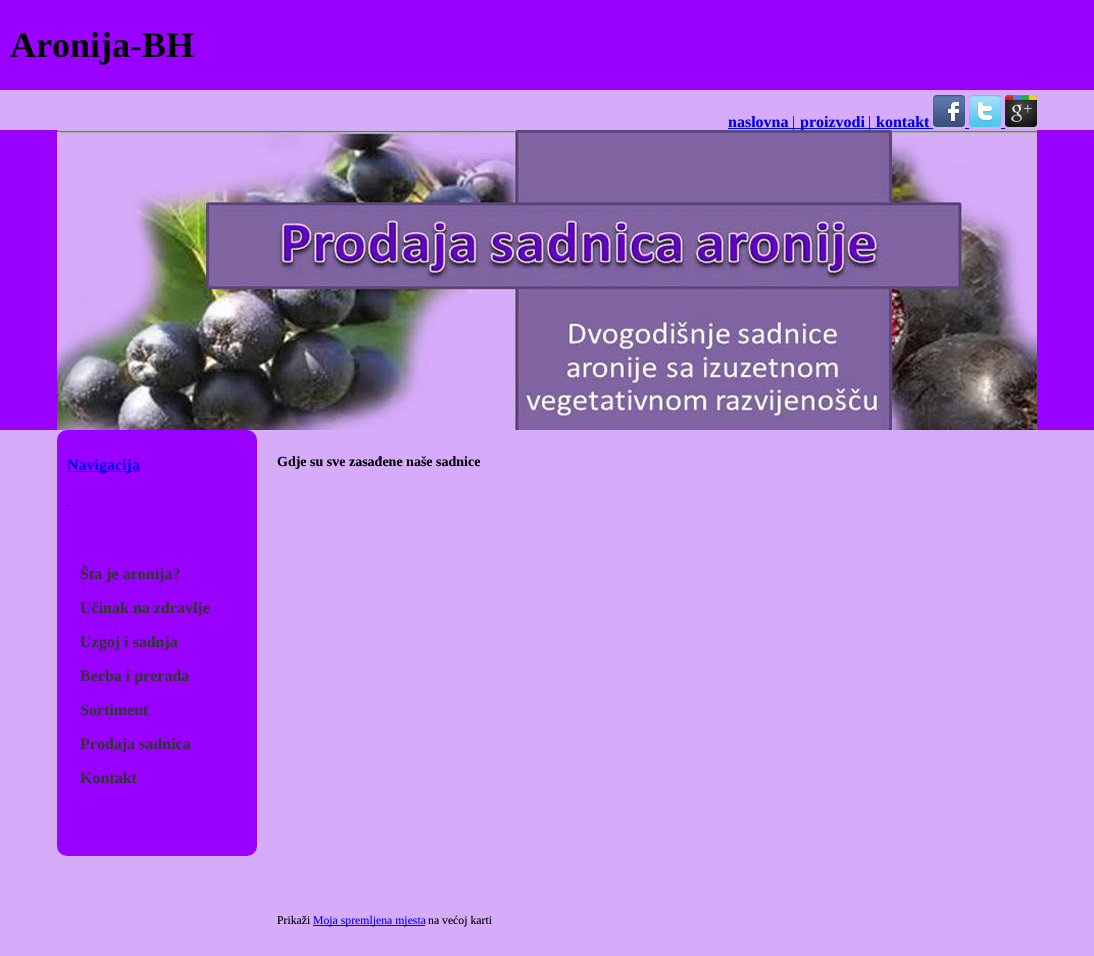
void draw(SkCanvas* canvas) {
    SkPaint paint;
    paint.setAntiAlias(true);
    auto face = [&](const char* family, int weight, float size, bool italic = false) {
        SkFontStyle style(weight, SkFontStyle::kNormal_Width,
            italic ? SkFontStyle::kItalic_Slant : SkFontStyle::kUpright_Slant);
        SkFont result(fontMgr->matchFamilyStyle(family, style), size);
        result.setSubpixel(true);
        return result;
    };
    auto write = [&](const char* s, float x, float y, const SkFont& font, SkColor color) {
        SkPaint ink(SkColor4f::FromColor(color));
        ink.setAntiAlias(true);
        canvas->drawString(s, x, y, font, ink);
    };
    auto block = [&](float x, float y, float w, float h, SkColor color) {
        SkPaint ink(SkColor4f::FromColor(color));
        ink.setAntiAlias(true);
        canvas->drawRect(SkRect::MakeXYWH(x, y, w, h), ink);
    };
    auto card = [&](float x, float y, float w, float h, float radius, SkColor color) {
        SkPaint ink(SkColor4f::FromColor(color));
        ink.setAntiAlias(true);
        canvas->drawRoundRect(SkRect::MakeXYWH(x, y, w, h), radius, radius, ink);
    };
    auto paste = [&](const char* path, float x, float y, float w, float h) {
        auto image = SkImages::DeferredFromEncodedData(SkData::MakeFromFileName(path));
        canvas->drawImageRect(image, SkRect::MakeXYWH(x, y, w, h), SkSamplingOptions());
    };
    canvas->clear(SkColorSetRGB(214, 171, 250));
    block(0, 0, 1094, 90, SkColorSetRGB(153, 0, 255));
    auto kFont1 = face("Liberation Serif", 700, 36);
    write("Aronija-BH", 10, 57, kFont1, SK_ColorBLACK);
    auto kFont2 = face("Liberation Serif", 700, 16);
    write("naslovna", 728, 127, kFont2, SkColorSetRGB(0, 0, 238));
    block(728, 128, 136, 1, SkColorSetRGB(0, 0, 238));
    block(0, 130, 1094, 300, SkColorSetRGB(153, 0, 255));
    auto kFont3 = face("Liberation Serif", 400, 16);
    write("|", 792, 127, kFont3, SkColorSetRGB(0, 0, 238));
    write("proizvodi", 800, 127, kFont2, SkColorSetRGB(0, 0, 238));
    block(864, 128, 69, 1, SkColorSetRGB(0, 0, 238));
    write("|", 868, 127, kFont3, SkColorSetRGB(0, 0, 238));
    write("kontakt", 876, 127, kFont2, SkColorSetRGB(0, 0, 238));
    paste("pic1.png", 933, 95, 32, 32);
    paste("pic2.png", 969, 95, 32, 32);
    paste("pic3.png", 1005, 95, 32, 32);
    block(965, 128, 4, 1, SkColorSetRGB(0, 0, 238));
    block(1001, 128, 4, 1, SkColorSetRGB(0, 0, 238));
    paste("pic4.png", 57, 130, 980, 300);
    card(57, 430, 200, 426, 10, SkColorSetRGB(153, 0, 255));
    block(67, 471, 73, 1, SkColorSetRGB(0, 0, 238));
    write("Navigacija", 67, 470, kFont2, SkColorSetRGB(0, 0, 238));
    block(67, 505, 4, 1, SkColorSetRGB(0, 0, 238));
    write("Šta je aronija?", 80, 579, kFont2, SkColorSetRGB(51, 51, 51));
    write("Učinak na zdravlje", 80, 613, kFont2, SkColorSetRGB(51, 51, 51));
    write("Uzgoj i sadnja", 80, 647, kFont2, SkColorSetRGB(51, 51, 51));
    write("Berba i prerada", 80, 681, kFont2, SkColorSetRGB(51, 51, 51));
    write("Sortiment", 80, 715, kFont2, SkColorSetRGB(51, 51, 51));
    write("Prodaja sadnica", 80, 749, kFont2, SkColorSetRGB(51, 51, 51));
    write("Kontakt", 80, 783, kFont2, SkColorSetRGB(51, 51, 51));
    auto kFont4 = face("Liberation Serif", 700, 14);
    write("Gdje su sve zasađene naše sadnice", 277, 466, kFont4, SK_ColorBLACK);
    auto kFont5 = face("Liberation Serif", 400, 11.75f);
    write("Prikaži", 277, 924, kFont5, SK_ColorBLACK);
    block(313, 925, 112, 1, SkColorSetRGB(0, 0, 255));
    write("Moja spremljena mjesta", 313, 924, kFont5, SkColorSetRGB(0, 0, 255));
    write("na većoj karti", 428, 924, kFont5, SK_ColorBLACK);
}
